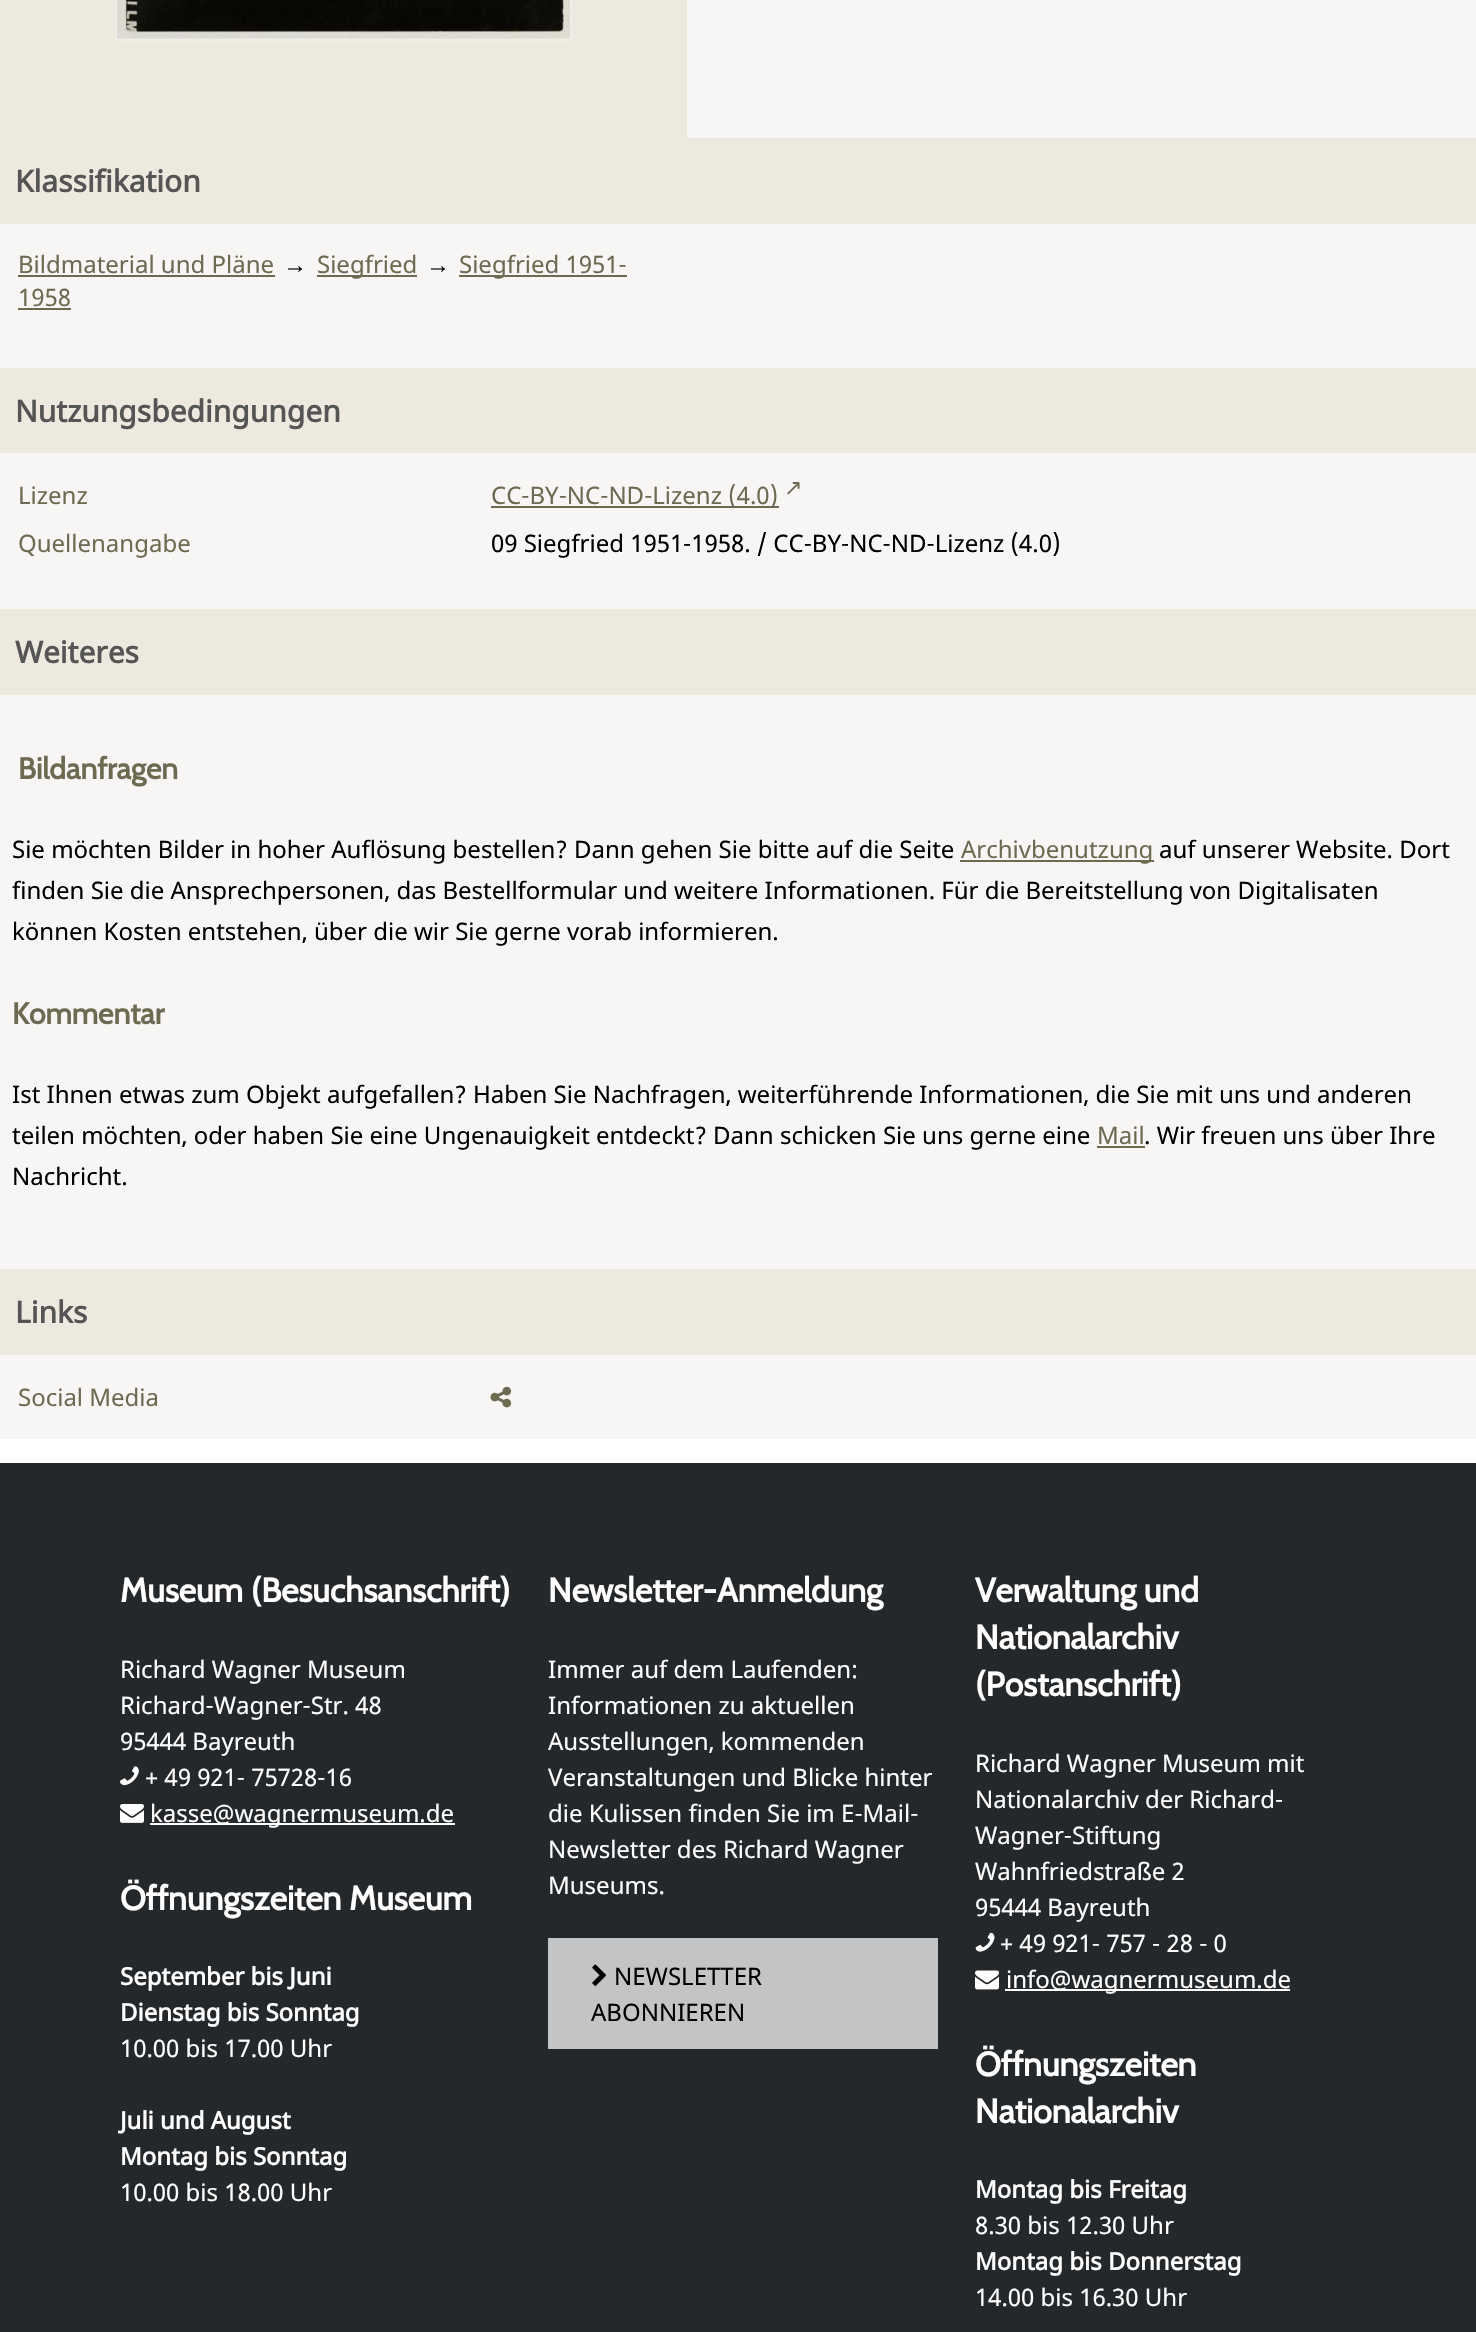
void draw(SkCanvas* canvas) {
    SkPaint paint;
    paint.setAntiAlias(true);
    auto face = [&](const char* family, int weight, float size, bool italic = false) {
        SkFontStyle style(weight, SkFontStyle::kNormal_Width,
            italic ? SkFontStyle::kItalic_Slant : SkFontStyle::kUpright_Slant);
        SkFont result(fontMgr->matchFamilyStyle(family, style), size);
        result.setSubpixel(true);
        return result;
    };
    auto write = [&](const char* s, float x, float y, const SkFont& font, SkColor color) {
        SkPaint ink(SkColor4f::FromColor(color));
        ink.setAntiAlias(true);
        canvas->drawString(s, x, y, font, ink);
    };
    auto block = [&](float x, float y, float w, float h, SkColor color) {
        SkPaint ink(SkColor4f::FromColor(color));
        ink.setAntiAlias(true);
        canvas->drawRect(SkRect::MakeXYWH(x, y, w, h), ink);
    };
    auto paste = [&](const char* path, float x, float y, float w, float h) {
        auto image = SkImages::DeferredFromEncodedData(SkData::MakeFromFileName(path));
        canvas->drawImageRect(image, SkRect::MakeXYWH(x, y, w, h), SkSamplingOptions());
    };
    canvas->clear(SK_ColorWHITE);
    block(0, 0, 687, 138, SkColorSetRGB(238, 233, 223));
    paint.setStyle(SkPaint::kStroke_Style);
    paint.setStrokeWidth(2);
    paint.setColor(SkColorSetRGB(238, 238, 236));
    canvas->drawRect(SkRect::MakeXYWH(117, -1, 454, 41), paint);
    paste("pic1.png", 117, 0, 453, 39);
    block(687, 0, 789, 138, SkColorSetRGB(247, 246, 244));
    block(0, 224, 1476, 1215, SkColorSetRGB(247, 246, 244));
    block(0, 138, 1476, 86, SkColorSetRGB(238, 233, 223));
    auto kFont1 = face("Noto Sans", 700, 30);
    write("Klassifikation", 15, 192, kFont1, SkColorSetRGB(85, 85, 85));
    auto kFont2 = face("Noto Sans", 400, 24);
    write("Bildmaterial und Pläne", 18, 273, kFont2, SkColorSetRGB(110, 106, 82));
    block(18, 275, 257, 2, SkColorSetRGB(110, 106, 82));
    auto kFont3 = face("Liberation Serif", 400, 24);
    write("→", 283, 273, kFont3, SK_ColorBLACK);
    block(317, 275, 100, 2, SkColorSetRGB(110, 106, 82));
    write("Siegfried", 317, 273, kFont2, SkColorSetRGB(110, 106, 82));
    write("→", 426, 273, kFont3, SK_ColorBLACK);
    block(459, 275, 168, 2, SkColorSetRGB(110, 106, 82));
    write("Siegfried 1951-", 459, 273, kFont2, SkColorSetRGB(110, 106, 82));
    write("1958", 18, 306, kFont2, SkColorSetRGB(110, 106, 82));
    block(18, 308, 53, 2, SkColorSetRGB(110, 106, 82));
    block(0, 368, 1476, 85, SkColorSetRGB(238, 233, 223));
    write("Nutzungsbedingungen", 15, 422, kFont1, SkColorSetRGB(85, 85, 85));
    write("Lizenz", 18, 504, kFont2, SkColorSetRGB(110, 106, 82));
    block(491, 506, 288, 2, SkColorSetRGB(110, 106, 82));
    write("CC-BY-NC-ND-Lizenz (4.0)", 491, 504, kFont2, SkColorSetRGB(110, 106, 82));
    auto kFont4 = face("DejaVu Sans", 400, 22);
    write("↗", 784, 495, kFont4, SkColorSetRGB(110, 106, 82));
    write("Quellenangabe", 18, 552, kFont2, SkColorSetRGB(110, 106, 82));
    write("09 Siegfried 1951-1958. / CC-BY-NC-ND-Lizenz (4.0)", 491, 552, kFont2, SK_ColorBLACK);
    block(0, 609, 1476, 86, SkColorSetRGB(238, 233, 223));
    write("Weiteres", 15, 663, kFont1, SkColorSetRGB(85, 85, 85));
    auto kFont5 = face("Cabin", 700, 30);
    write("Bildanfragen", 18, 779, kFont5, SkColorSetRGB(110, 106, 82));
    write("Sie möchten Bilder in hoher Auflösung bestellen? Dann gehen Sie bitte auf die Seite", 12, 858, kFont2, SK_ColorBLACK);
    block(960, 860, 194, 2, SkColorSetRGB(110, 106, 82));
    write("Archivbenutzung", 961, 858, kFont2, SkColorSetRGB(110, 106, 82));
    write("auf unserer Website. Dort", 1159, 858, kFont2, SK_ColorBLACK);
    write("finden Sie die Ansprechpersonen, das Bestellformular und weitere Informationen. Für die Bereitstellung von Digitalisaten", 12, 899, kFont2, SK_ColorBLACK);
    write("können Kosten entstehen, über die wir Sie gerne vorab informieren.", 12, 940, kFont2, SK_ColorBLACK);
    write("Kommentar", 12, 1024, kFont5, SkColorSetRGB(110, 106, 82));
    write("Ist Ihnen etwas zum Objekt aufgefallen? Haben Sie Nachfragen, weiterführende Informationen, die Sie mit uns und anderen", 12, 1103, kFont2, SK_ColorBLACK);
    write("teilen möchten, oder haben Sie eine Ungenauigkeit entdeckt? Dann schicken Sie uns gerne eine", 12, 1144, kFont2, SK_ColorBLACK);
    write("Mail", 1097, 1144, kFont2, SkColorSetRGB(110, 106, 82));
    block(1097, 1146, 48, 2, SkColorSetRGB(110, 106, 82));
    write(". Wir freuen uns über Ihre", 1144, 1144, kFont2, SK_ColorBLACK);
    write("Nachricht.", 12, 1185, kFont2, SK_ColorBLACK);
    block(0, 1269, 1476, 86, SkColorSetRGB(238, 233, 223));
    write("Links", 15, 1323, kFont1, SkColorSetRGB(85, 85, 85));
    write("Social Media", 18, 1406, kFont2, SkColorSetRGB(110, 106, 82));
    paste("pic2.png", 490, 1386, 22, 22);
    block(0, 1463, 1476, 869, SkColorSetRGB(37, 40, 43));
    auto kFont6 = face("Cabin", 700, 33.6f);
    write("Museum (Besuchsanschrift)", 120, 1602, kFont6, SK_ColorWHITE);
    write("Richard Wagner Museum", 120, 1678, kFont2, SK_ColorWHITE);
    write("Richard-Wagner-Str. 48", 120, 1714, kFont2, SK_ColorWHITE);
    write("95444 Bayreuth", 120, 1750, kFont2, SK_ColorWHITE);
    paste("pic3.png", 120, 1766, 19, 20);
    write("+ 49 921- 75728-16", 145, 1786, kFont2, SK_ColorWHITE);
    paste("pic4.png", 120, 1804, 24, 19);
    block(150, 1823, 305, 2, SK_ColorWHITE);
    write("kasse@wagnermuseum.de", 150, 1822, kFont2, SK_ColorWHITE);
    write("Öffnungszeiten Museum", 120, 1910, kFont6, SK_ColorWHITE);
    auto kFont7 = face("Noto Sans", 700, 24);
    write("September bis Juni", 120, 1985, kFont7, SK_ColorWHITE);
    write("Dienstag bis Sonntag", 120, 2021, kFont7, SK_ColorWHITE);
    write("10.00 bis 17.00 Uhr", 120, 2057, kFont2, SK_ColorWHITE);
    write("Juli und August", 120, 2129, kFont7, SK_ColorWHITE);
    write("Montag bis Sonntag", 120, 2165, kFont7, SK_ColorWHITE);
    write("10.00 bis 18.00 Uhr", 120, 2201, kFont2, SK_ColorWHITE);
    write("Newsletter-Anmeldung", 548, 1602, kFont6, SK_ColorWHITE);
    write("Immer auf dem Laufenden:", 548, 1678, kFont2, SK_ColorWHITE);
    write("Informationen zu aktuellen", 548, 1714, kFont2, SK_ColorWHITE);
    write("Ausstellungen, kommenden", 548, 1750, kFont2, SK_ColorWHITE);
    write("Veranstaltungen und Blicke hinter", 548, 1786, kFont2, SK_ColorWHITE);
    write("die Kulissen finden Sie im E-Mail-", 548, 1822, kFont2, SK_ColorWHITE);
    write("Newsletter des Richard Wagner", 548, 1858, kFont2, SK_ColorWHITE);
    write("Museums.", 548, 1894, kFont2, SK_ColorWHITE);
    block(548, 1938, 390, 111, SkColorSetRGB(194, 196, 197));
    paste("pic5.png", 592, 1964, 14, 22);
    write("NEWSLETTER", 614, 1985, kFont2, SK_ColorBLACK);
    write("ABONNIEREN", 591, 2021, kFont2, SK_ColorBLACK);
    write("Verwaltung und", 975, 1602, kFont6, SK_ColorWHITE);
    write("Nationalarchiv", 975, 1649, kFont6, SK_ColorWHITE);
    write("(Postanschrift)", 975, 1696, kFont6, SK_ColorWHITE);
    write("Richard Wagner Museum mit", 975, 1772, kFont2, SK_ColorWHITE);
    write("Nationalarchiv der Richard-", 975, 1808, kFont2, SK_ColorWHITE);
    write("Wagner-Stiftung", 975, 1844, kFont2, SK_ColorWHITE);
    write("Wahnfriedstraße 2", 975, 1880, kFont2, SK_ColorWHITE);
    write("95444 Bayreuth", 975, 1916, kFont2, SK_ColorWHITE);
    paste("pic6.png", 975, 1932, 20, 20);
    write("+ 49 921- 757 - 28 - 0", 1000, 1952, kFont2, SK_ColorWHITE);
    paste("pic7.png", 975, 1970, 24, 20);
    block(1005, 1989, 285, 2, SK_ColorWHITE);
    write("info@wagnermuseum.de", 1006, 1988, kFont2, SK_ColorWHITE);
    write("Öffnungszeiten", 975, 2076, kFont6, SK_ColorWHITE);
    write("Nationalarchiv", 975, 2123, kFont6, SK_ColorWHITE);
    write("Montag bis Freitag", 975, 2198, kFont7, SK_ColorWHITE);
    write("8.30 bis 12.30 Uhr", 975, 2234, kFont2, SK_ColorWHITE);
    write("Montag bis Donnerstag", 975, 2270, kFont7, SK_ColorWHITE);
    write("14.00 bis 16.30 Uhr", 975, 2306, kFont2, SK_ColorWHITE);
}
